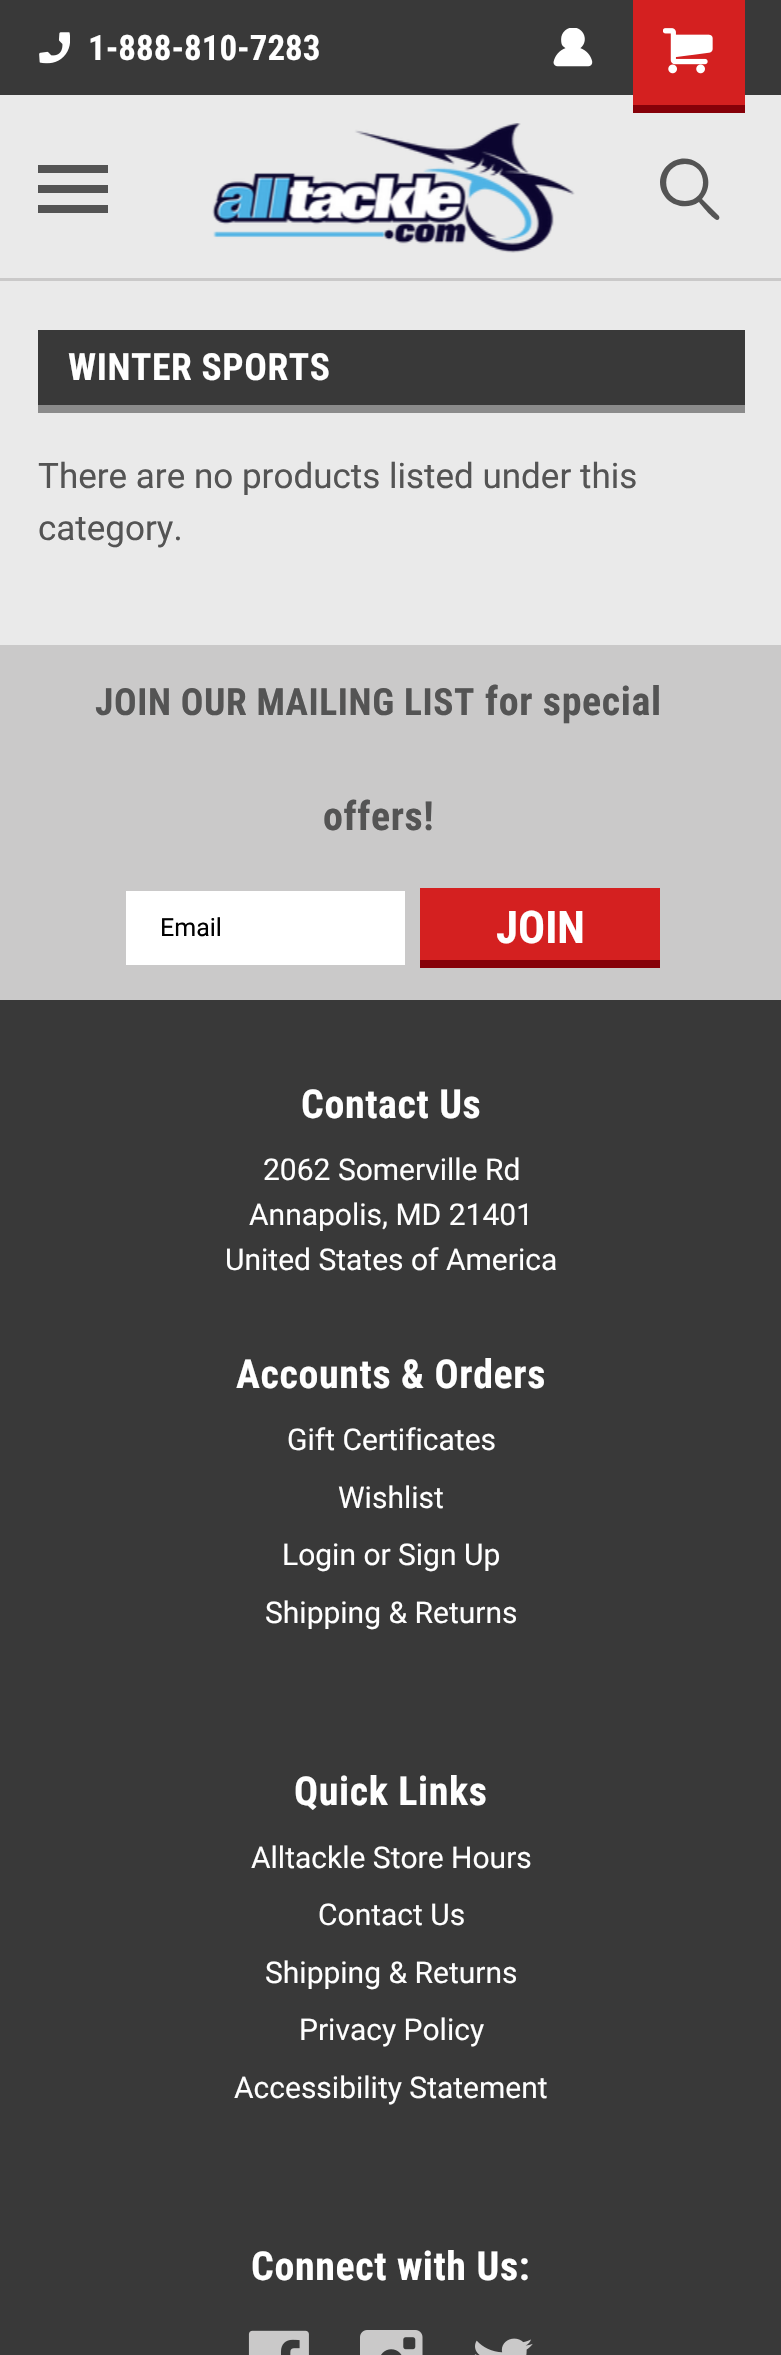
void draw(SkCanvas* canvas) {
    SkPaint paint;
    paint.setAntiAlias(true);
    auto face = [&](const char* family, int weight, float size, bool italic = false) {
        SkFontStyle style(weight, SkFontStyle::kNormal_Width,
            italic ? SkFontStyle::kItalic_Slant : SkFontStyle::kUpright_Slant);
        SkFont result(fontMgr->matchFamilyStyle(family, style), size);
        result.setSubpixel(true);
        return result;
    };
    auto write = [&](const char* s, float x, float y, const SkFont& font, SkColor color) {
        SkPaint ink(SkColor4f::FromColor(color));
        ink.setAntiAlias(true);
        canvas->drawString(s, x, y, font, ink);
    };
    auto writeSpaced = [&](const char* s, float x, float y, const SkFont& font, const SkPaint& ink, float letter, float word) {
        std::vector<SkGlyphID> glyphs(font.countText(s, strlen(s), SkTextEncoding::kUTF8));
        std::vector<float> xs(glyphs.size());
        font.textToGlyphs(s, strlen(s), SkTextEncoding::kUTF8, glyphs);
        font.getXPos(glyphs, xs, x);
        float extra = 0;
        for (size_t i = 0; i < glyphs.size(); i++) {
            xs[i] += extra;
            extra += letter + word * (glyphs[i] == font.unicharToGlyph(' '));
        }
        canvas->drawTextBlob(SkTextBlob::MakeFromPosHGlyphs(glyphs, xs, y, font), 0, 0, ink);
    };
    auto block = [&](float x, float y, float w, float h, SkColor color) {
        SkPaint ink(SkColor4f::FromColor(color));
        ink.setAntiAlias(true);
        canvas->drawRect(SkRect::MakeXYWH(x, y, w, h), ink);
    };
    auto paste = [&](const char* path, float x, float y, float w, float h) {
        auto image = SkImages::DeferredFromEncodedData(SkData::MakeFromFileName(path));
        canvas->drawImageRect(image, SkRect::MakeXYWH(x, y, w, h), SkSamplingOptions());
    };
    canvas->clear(SkColorSetRGB(234, 234, 234));
    block(0, 278, 781, 3, SkColorSetRGB(202, 201, 201));
    block(0, 0, 781, 95, SkColorSetRGB(57, 57, 57));
    paste("pic1.png", 39, 32, 31, 32);
    auto kFont1 = face("Roboto Condensed", 700, 35);
    write("1-888-810-7283", 88, 60, kFont1, SK_ColorWHITE);
    paste("pic2.png", 553, 28, 40, 39);
    block(633, 0, 112, 105, SkColorSetRGB(212, 32, 32));
    block(633, 105, 112, 8, SkColorSetRGB(134, 1, 9));
    paste("pic3.png", 663, 28, 50, 46);
    block(38, 185, 70, 8, SkColorSetRGB(84, 84, 84));
    block(38, 165, 70, 8, SkColorSetRGB(84, 84, 84));
    block(38, 205, 70, 8, SkColorSetRGB(84, 84, 84));
    paste("pic4.png", 212, 123, 363, 130);
    paint.setColor(SkColorSetRGB(84, 84, 84));
    canvas->drawPath(SkPathBuilder().moveTo(717, 220).cubicTo(714, 220, 701, 205, 699, 202).cubicTo(683, 213, 660, 202, 660, 182).cubicTo(661, 162, 683, 152, 698, 163).cubicTo(710, 171, 712, 188, 702, 199).lineTo(719, 216).cubicTo(720, 218, 719, 220, 717, 220).close().moveTo(685, 164).cubicTo(660, 164, 660, 201, 685, 201).cubicTo(709, 201, 709, 164, 685, 164).close().detach(), paint);
    block(38, 330, 707, 75, SkColorSetRGB(57, 57, 57));
    block(38, 405, 707, 8, SkColorSetRGB(139, 139, 139));
    auto kFont2 = face("Roboto Condensed", 700, 37.5f);
    paint.setColor(SK_ColorWHITE);
    writeSpaced("WINTER SPORTS", 68, 380, kFont2, paint, 0.6f, 0);
    auto kFont3 = face("Roboto", 400, 35);
    write("There are no products listed under this", 38, 488, kFont3, SkColorSetRGB(84, 84, 84));
    write("category.", 38, 540, kFont3, SkColorSetRGB(84, 84, 84));
    block(0, 1000, 781, 1355, SkColorSetRGB(57, 57, 57));
    block(0, 645, 781, 355, SkColorSetRGB(202, 201, 201));
    paint.setColor(SkColorSetRGB(84, 84, 84));
    writeSpaced("JOIN OUR MAILING LIST", 95, 715, kFont2, paint, 0.6f, 0);
    auto kFont4 = face("Roboto Condensed", 700, 40);
    writeSpaced("for special", 485, 715, kFont4, paint, 0.6f, 0);
    writeSpaced("offers!", 323, 830, kFont4, paint, 0.6f, 0);
    block(126, 891, 279, 74, SK_ColorWHITE);
    auto kFont5 = face("Roboto", 400, 25);
    write("Email", 160, 936, kFont5, SK_ColorBLACK);
    block(420, 888, 240, 72, SkColorSetRGB(212, 32, 32));
    block(420, 960, 240, 8, SkColorSetRGB(134, 1, 9));
    auto kFont6 = face("Roboto Condensed", 700, 45);
    write("JOIN", 496, 943, kFont6, SK_ColorWHITE);
    paint.setColor(SK_ColorWHITE);
    writeSpaced("Contact Us", 301, 1118, kFont4, paint, 0.6f, 0);
    auto kFont7 = face("Roboto", 400, 30);
    write("2062 Somerville Rd", 263, 1180, kFont7, SK_ColorWHITE);
    write("Annapolis, MD 21401", 249, 1225, kFont7, SK_ColorWHITE);
    write("United States of America", 225, 1270, kFont7, SK_ColorWHITE);
    writeSpaced("Accounts & Orders", 236, 1388, kFont4, paint, 0.6f, 0);
    write("Gift Certificates", 287, 1450, kFont7, SK_ColorWHITE);
    write("Wishlist", 338, 1508, kFont7, SK_ColorWHITE);
    write("Login or", 282, 1565, kFont7, SK_ColorWHITE);
    write("Sign Up", 398, 1565, kFont7, SK_ColorWHITE);
    write("Shipping & Returns", 265, 1623, kFont7, SK_ColorWHITE);
    writeSpaced("Quick Links", 294, 1805, kFont4, paint, 0.6f, 0);
    write("Alltackle Store Hours", 251, 1868, kFont7, SK_ColorWHITE);
    write("Contact Us", 318, 1925, kFont7, SK_ColorWHITE);
    write("Shipping & Returns", 265, 1983, kFont7, SK_ColorWHITE);
    write("Privacy Policy", 299, 2040, kFont7, SK_ColorWHITE);
    write("Accessibility Statement", 234, 2098, kFont7, SK_ColorWHITE);
    writeSpaced("Connect with Us:", 251, 2280, kFont4, paint, 0.6f, 0);
    paste("pic5.png", 248, 2330, 61, 25);
    paste("pic6.png", 360, 2330, 63, 25);
    paste("pic7.png", 474, 2338, 59, 17);
}
